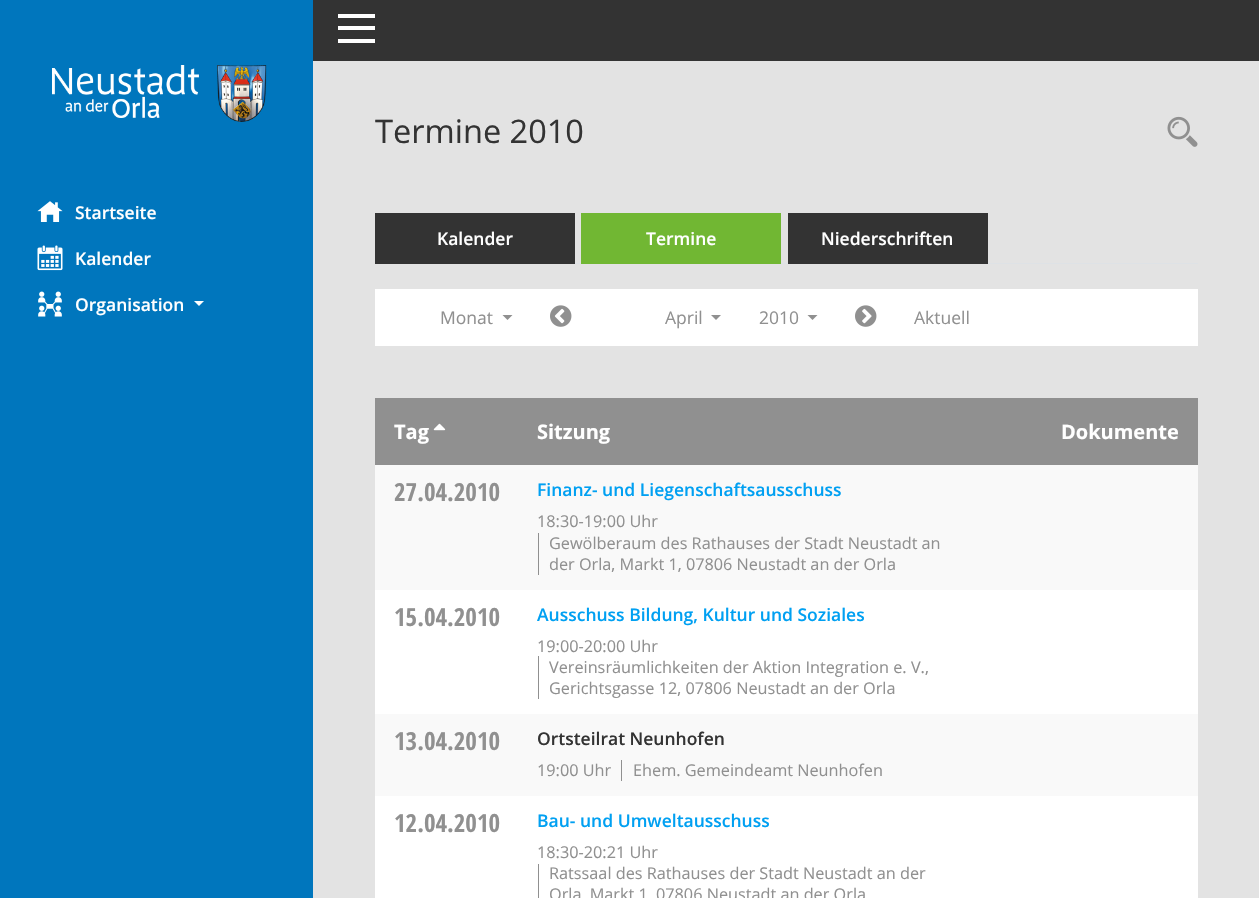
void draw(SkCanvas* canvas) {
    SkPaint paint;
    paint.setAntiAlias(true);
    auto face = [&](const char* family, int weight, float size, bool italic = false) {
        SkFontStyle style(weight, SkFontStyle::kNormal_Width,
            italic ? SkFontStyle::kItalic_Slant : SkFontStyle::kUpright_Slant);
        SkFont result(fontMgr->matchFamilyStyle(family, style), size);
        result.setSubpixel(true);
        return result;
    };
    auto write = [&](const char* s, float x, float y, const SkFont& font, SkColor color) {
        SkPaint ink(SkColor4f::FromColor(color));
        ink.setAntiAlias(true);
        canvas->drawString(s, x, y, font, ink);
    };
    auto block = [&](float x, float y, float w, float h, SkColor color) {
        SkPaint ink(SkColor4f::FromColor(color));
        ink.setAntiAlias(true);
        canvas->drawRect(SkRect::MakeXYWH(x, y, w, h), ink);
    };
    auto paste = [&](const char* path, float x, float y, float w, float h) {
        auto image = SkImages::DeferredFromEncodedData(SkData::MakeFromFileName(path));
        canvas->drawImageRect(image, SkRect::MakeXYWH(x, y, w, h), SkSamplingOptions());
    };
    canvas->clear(SkColorSetRGB(227, 227, 227));
    block(0, 0, 313, 898, SkColorSetRGB(0, 118, 189));
    paste("pic1.png", 52, 65, 215, 57);
    paste("pic2.png", 37, 201, 26, 21);
    auto kFont1 = face("Open Sans", 600, 17.5f);
    write("Startseite", 75, 219, kFont1, SK_ColorWHITE);
    paste("pic3.png", 37, 245, 26, 26);
    write("Kalender", 75, 265, kFont1, SK_ColorWHITE);
    paste("pic4.png", 38, 291, 24, 26);
    write("Organisation", 75, 311, kFont1, SK_ColorWHITE);
    paint.setColor(SK_ColorWHITE);
    canvas->drawPath(SkPathBuilder().moveTo(194, 301).lineTo(204, 301).lineTo(199, 306).close().detach(), paint);
    block(313, 0, 946, 61, SkColorSetRGB(51, 51, 51));
    block(338, 14, 37, 4, SK_ColorWHITE);
    block(338, 26, 37, 4, SK_ColorWHITE);
    block(338, 39, 37, 4, SK_ColorWHITE);
    auto kFont2 = face("Open Sans", 400, 32.5f);
    write("Termine 2010", 375, 143, kFont2, SkColorSetRGB(51, 51, 51));
    paste("pic5.png", 1167, 116, 31, 31);
    block(575, 263, 623, 1, SkColorSetRGB(222, 226, 230));
    block(375, 213, 200, 51, SkColorSetRGB(51, 51, 51));
    write("Kalender", 437, 245, kFont1, SK_ColorWHITE);
    block(581, 213, 200, 51, SkColorSetRGB(113, 183, 51));
    write("Termine", 646, 245, kFont1, SK_ColorWHITE);
    block(788, 213, 200, 51, SkColorSetRGB(51, 51, 51));
    write("Niederschriften", 821, 245, kFont1, SK_ColorWHITE);
    block(375, 289, 823, 57, SK_ColorWHITE);
    auto kFont3 = face("Open Sans", 400, 17.5f);
    write("Monat", 440, 324, kFont3, SkColorSetRGB(144, 144, 144));
    paint.setColor(SkColorSetRGB(144, 144, 144));
    canvas->drawPath(SkPathBuilder().moveTo(502.5f, 315).lineTo(512.5f, 315).lineTo(507.5f, 320).close().detach(), paint);
    paste("pic6.png", 550, 305, 22, 22);
    write("April", 665, 324, kFont3, SkColorSetRGB(144, 144, 144));
    canvas->drawPath(SkPathBuilder().moveTo(711, 315).lineTo(721, 315).lineTo(716, 320).close().detach(), paint);
    write("2010", 759, 324, kFont3, SkColorSetRGB(144, 144, 144));
    canvas->drawPath(SkPathBuilder().moveTo(807.5f, 315).lineTo(817.5f, 315).lineTo(812.5f, 320).close().detach(), paint);
    paste("pic7.png", 855, 305, 22, 22);
    write("Aktuell", 914, 324, kFont3, SkColorSetRGB(144, 144, 144));
    block(375, 590, 823, 308, SK_ColorWHITE);
    block(375, 398, 823, 67, SkColorSetRGB(144, 144, 144));
    auto kFont4 = face("Open Sans", 700, 20);
    write("Tag", 394, 439, kFont4, SK_ColorWHITE);
    paste("pic8.png", 433, 423, 13, 8);
    write("Sitzung", 537, 439, kFont4, SK_ColorWHITE);
    write("Dokumente", 1061, 439, kFont4, SK_ColorWHITE);
    block(375, 465, 823, 125, SkColorSetRGB(249, 249, 249));
    auto kFont5 = face("Open Sans Condensed", 700, 25);
    write("27.04.2010", 394, 501, kFont5, SkColorSetRGB(144, 144, 144));
    write("Finanz- und Liegenschaftsausschuss", 537, 496, kFont1, SkColorSetRGB(0, 160, 242));
    auto kFont6 = face("Open Sans", 400, 16.25f);
    write("18:30-19:00 Uhr", 537, 527, kFont6, SkColorSetRGB(144, 144, 144));
    block(538, 533, 1, 42, SkColorSetRGB(144, 144, 144));
    write("Gewölberaum des Rathauses der Stadt Neustadt an", 549, 549, kFont6, SkColorSetRGB(144, 144, 144));
    write("der Orla, Markt 1, 07806 Neustadt an der Orla", 549, 570, kFont6, SkColorSetRGB(144, 144, 144));
    write("15.04.2010", 394, 626, kFont5, SkColorSetRGB(144, 144, 144));
    write("Ausschuss Bildung, Kultur und Soziales", 537, 621, kFont1, SkColorSetRGB(0, 160, 242));
    write("19:00-20:00 Uhr", 537, 652, kFont6, SkColorSetRGB(144, 144, 144));
    block(538, 656, 1, 43, SkColorSetRGB(144, 144, 144));
    write("Vereinsräumlichkeiten der Aktion Integration e. V.,", 549, 673, kFont6, SkColorSetRGB(144, 144, 144));
    write("Gerichtsgasse 12, 07806 Neustadt an der Orla", 549, 694, kFont6, SkColorSetRGB(144, 144, 144));
    block(375, 714, 823, 82, SkColorSetRGB(249, 249, 249));
    write("13.04.2010", 394, 750, kFont5, SkColorSetRGB(144, 144, 144));
    write("Ortsteilrat Neunhofen", 537, 745, kFont1, SkColorSetRGB(51, 51, 51));
    write("19:00 Uhr", 537, 776, kFont6, SkColorSetRGB(144, 144, 144));
    block(621, 760, 1, 21, SkColorSetRGB(144, 144, 144));
    write("Ehem. Gemeindeamt Neunhofen", 633, 776, kFont6, SkColorSetRGB(144, 144, 144));
    write("12.04.2010", 394, 832, kFont5, SkColorSetRGB(144, 144, 144));
    write("Bau- und Umweltausschuss", 537, 827, kFont1, SkColorSetRGB(0, 160, 242));
    write("18:30-20:21 Uhr", 537, 858, kFont6, SkColorSetRGB(144, 144, 144));
    block(538, 864, 1, 34, SkColorSetRGB(144, 144, 144));
    write("Ratssaal des Rathauses der Stadt Neustadt an der", 549, 879, kFont6, SkColorSetRGB(144, 144, 144));
    write("Orla, Markt 1, 07806 Neustadt an der Orla", 549, 900, kFont6, SkColorSetRGB(144, 144, 144));
}
